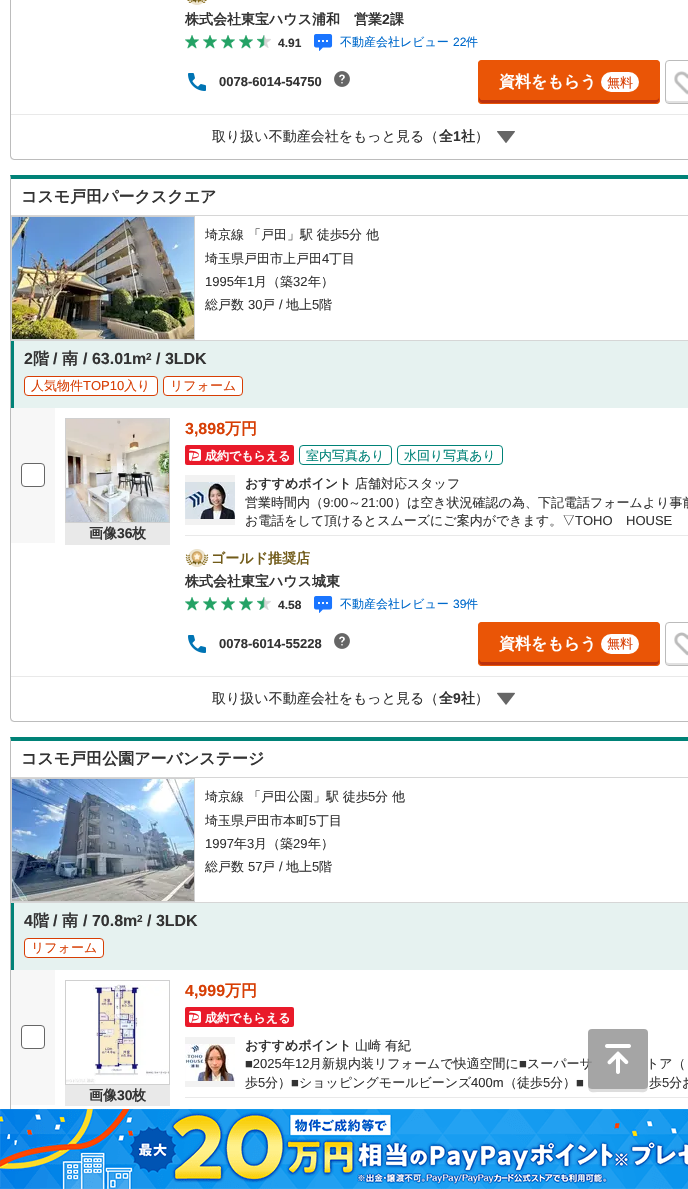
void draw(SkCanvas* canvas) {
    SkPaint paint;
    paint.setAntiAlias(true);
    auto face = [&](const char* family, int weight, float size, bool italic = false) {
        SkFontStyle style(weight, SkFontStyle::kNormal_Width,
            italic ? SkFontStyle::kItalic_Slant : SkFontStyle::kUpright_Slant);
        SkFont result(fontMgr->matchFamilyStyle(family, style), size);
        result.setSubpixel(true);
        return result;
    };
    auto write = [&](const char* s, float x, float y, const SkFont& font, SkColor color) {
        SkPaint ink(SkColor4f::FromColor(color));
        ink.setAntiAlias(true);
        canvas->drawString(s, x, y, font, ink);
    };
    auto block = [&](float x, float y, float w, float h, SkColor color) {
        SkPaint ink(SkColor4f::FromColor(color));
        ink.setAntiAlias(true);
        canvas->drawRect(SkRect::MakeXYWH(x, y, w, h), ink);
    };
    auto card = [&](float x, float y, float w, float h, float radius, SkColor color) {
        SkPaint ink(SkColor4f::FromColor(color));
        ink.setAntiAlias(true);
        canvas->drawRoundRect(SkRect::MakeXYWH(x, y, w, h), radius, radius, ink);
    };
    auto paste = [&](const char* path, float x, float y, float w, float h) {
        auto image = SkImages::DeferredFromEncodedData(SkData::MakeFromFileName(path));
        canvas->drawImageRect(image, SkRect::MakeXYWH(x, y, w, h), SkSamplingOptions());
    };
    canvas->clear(SK_ColorWHITE);
    paint.setColor(SkColorSetRGB(188, 188, 188));
    canvas->drawPath(SkPathBuilder().moveTo(14, 160).lineTo(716, 160).lineTo(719, 159).lineTo(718, 158).lineTo(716, 159).lineTo(14, 159).lineTo(12, 158).lineTo(11, 159).close().detach(), paint);
    canvas->drawPath(SkPathBuilder().moveTo(11, -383).lineTo(10, -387).lineTo(10, 156).lineTo(11, 159).lineTo(12, 158).lineTo(11, 156).close().detach(), paint);
    block(11, 114, 677, 1, SkColorSetRGB(233, 233, 233));
    paste("pic1.png", 187, 0, 20, 5);
    auto kFont1 = face("WenQuanYi Zen Hei", 700, 14);
    write("株式会社東宝ハウス浦和　営業", 185, 24, kFont1, SkColorSetRGB(51, 51, 51));
    auto kFont2 = face("Liberation Sans", 700, 14);
    write("2", 382, 24, kFont2, SkColorSetRGB(51, 51, 51));
    write("課", 390, 24, kFont1, SkColorSetRGB(51, 51, 51));
    paste("pic2.png", 185, 35, 14, 14);
    paste("pic2.png", 203, 35, 14, 14);
    paste("pic3.png", 221, 35, 14, 14);
    paste("pic2.png", 239, 35, 14, 14);
    paste("pic4.png", 257, 35, 14, 13);
    auto kFont3 = face("Liberation Sans", 700, 12);
    write("4.91", 278, 47, kFont3, SkColorSetRGB(51, 51, 51));
    paste("pic5.png", 314, 34, 19, 17);
    auto kFont4 = face("WenQuanYi Zen Hei", 500, 12);
    write("不動産会社レビュー", 340, 46, kFont4, SkColorSetRGB(0, 106, 204));
    auto kFont5 = face("Liberation Sans", 400, 12);
    write("22", 453, 46, kFont5, SkColorSetRGB(0, 106, 204));
    write("件", 466, 46, kFont4, SkColorSetRGB(0, 106, 204));
    paste("pic6.png", 188, 73, 18, 18);
    auto kFont6 = face("Liberation Sans", 700, 13);
    write("0078-6014-54750", 219, 86, kFont6, SkColorSetRGB(51, 51, 51));
    paste("pic7.png", 334, 71, 16, 16);
    card(478, 60, 182, 44, 4, SkColorSetRGB(234, 85, 6));
    paint.setColor(SkColorSetRGB(188, 50, 14));
    canvas->drawPath(SkPathBuilder().moveTo(479, 97).lineTo(479, 100).cubicTo(479, 102, 480, 103, 482, 103).lineTo(656, 103).cubicTo(658, 103, 659, 102, 659, 100).lineTo(659, 97).cubicTo(659, 99, 658, 100, 656, 100).lineTo(481, 100).lineTo(480, 99).close().detach(), paint);
    paint.setStyle(SkPaint::kStroke_Style);
    paint.setStrokeWidth(1);
    paint.setColor(SkColorSetRGB(234, 85, 6));
    canvas->drawRoundRect(SkRect::MakeXYWH(478.5f, 60.5f, 181, 43), 3.5f, 3.5f, paint);
    auto kFont7 = face("WenQuanYi Zen Hei", 700, 16);
    write("資料をもらう", 499, 87, kFont7, SK_ColorWHITE);
    card(601, 72, 38, 20, 10, SK_ColorWHITE);
    auto kFont8 = face("WenQuanYi Zen Hei", 500, 13);
    write("無料", 607, 87, kFont8, SkColorSetRGB(215, 62, 4));
    paint.setStyle(SkPaint::kFill_Style);
    paint.setColor(SkColorSetRGB(225, 225, 225));
    canvas->drawPath(SkPathBuilder().moveTo(666, 98).cubicTo(666, 104, 669, 103, 675, 103).lineTo(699, 103).cubicTo(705, 103, 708, 104, 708, 98).cubicTo(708, 100, 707, 101, 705, 101).lineTo(669, 101).cubicTo(667, 101, 666, 100, 666, 98).close().detach(), paint);
    paint.setStyle(SkPaint::kStroke_Style);
    paint.setColor(SkColorSetRGB(187, 187, 187));
    canvas->drawRoundRect(SkRect::MakeXYWH(665.5f, 60.5f, 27, 43), 3.5f, 3.5f, paint);
    paste("pic8.png", 674, 71, 14, 24);
    auto kFont9 = face("WenQuanYi Zen Hei", 500, 14);
    write("取り扱い不動産会社をもっと見る（", 212, 141, kFont9, SkColorSetRGB(51, 51, 51));
    write("全", 439, 141, kFont1, SkColorSetRGB(51, 51, 51));
    write("1", 453, 141, kFont2, SkColorSetRGB(51, 51, 51));
    write("社", 461, 141, kFont1, SkColorSetRGB(51, 51, 51));
    write("）", 475, 141, kFont9, SkColorSetRGB(51, 51, 51));
    paste("pic9.png", 497, 131, 18, 12);
    paint.setStyle(SkPaint::kFill_Style);
    paint.setColor(SkColorSetRGB(0, 130, 119));
    canvas->drawPath(SkPathBuilder().moveTo(10, 175).lineTo(11, 179).lineTo(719, 179).lineTo(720, 175).close().detach(), paint);
    paint.setColor(SkColorSetRGB(188, 188, 188));
    canvas->drawPath(SkPathBuilder().moveTo(14, 722).lineTo(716, 722).lineTo(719, 721).lineTo(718, 720).lineTo(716, 721).lineTo(14, 721).lineTo(12, 720).lineTo(11, 721).close().detach(), paint);
    canvas->drawPath(SkPathBuilder().moveTo(11, 179).lineTo(10, 175).lineTo(10, 718).lineTo(11, 721).lineTo(12, 720).lineTo(11, 718).close().detach(), paint);
    write("コスモ戸田パークスクエア", 21, 202, kFont7, SkColorSetRGB(51, 51, 51));
    block(11, 215, 677, 1, SkColorSetRGB(214, 214, 214));
    block(11, 340, 677, 1, SkColorSetRGB(214, 214, 214));
    paste("pic10.png", 12, 217, 182, 122);
    paint.setStyle(SkPaint::kStroke_Style);
    paint.setColor(SkColorSetRGB(208, 208, 208));
    canvas->drawRect(SkRect::MakeXYWH(11.5f, 216.5f, 183, 123), paint);
    write("埼京線 「戸田」駅 徒歩", 205, 239, kFont8, SkColorSetRGB(51, 51, 51));
    auto kFont10 = face("Liberation Sans", 400, 13);
    write("5", 342, 239, kFont10, SkColorSetRGB(51, 51, 51));
    write("分 他", 349, 239, kFont8, SkColorSetRGB(51, 51, 51));
    write("埼玉県戸田市上戸田", 205, 263, kFont8, SkColorSetRGB(51, 51, 51));
    write("4", 322, 263, kFont10, SkColorSetRGB(51, 51, 51));
    write("丁目", 329, 263, kFont8, SkColorSetRGB(51, 51, 51));
    write("1995", 205, 286, kFont10, SkColorSetRGB(51, 51, 51));
    write("年", 234, 286, kFont8, SkColorSetRGB(51, 51, 51));
    write("1", 247, 286, kFont10, SkColorSetRGB(51, 51, 51));
    write("月（築", 254, 286, kFont8, SkColorSetRGB(51, 51, 51));
    write("32", 293, 286, kFont10, SkColorSetRGB(51, 51, 51));
    write("年）", 308, 286, kFont8, SkColorSetRGB(51, 51, 51));
    write("総戸数", 205, 309, kFont8, SkColorSetRGB(51, 51, 51));
    write("30", 248, 309, kFont10, SkColorSetRGB(51, 51, 51));
    write("戸", 262, 309, kFont8, SkColorSetRGB(51, 51, 51));
    write("/", 279, 309, kFont10, SkColorSetRGB(51, 51, 51));
    write("地上", 286, 309, kFont8, SkColorSetRGB(51, 51, 51));
    write("5", 312, 309, kFont10, SkColorSetRGB(51, 51, 51));
    write("階", 319, 309, kFont8, SkColorSetRGB(51, 51, 51));
    block(14, 341, 674, 67, SkColorSetRGB(230, 242, 240));
    block(11, 341, 3, 67, SkColorSetRGB(0, 130, 119));
    auto kFont11 = face("Liberation Sans", 700, 16);
    write("2", 24, 364, kFont11, SkColorSetRGB(51, 51, 51));
    write("階", 33, 364, kFont7, SkColorSetRGB(51, 51, 51));
    write("/", 53, 364, kFont11, SkColorSetRGB(51, 51, 51));
    write("南", 62, 364, kFont7, SkColorSetRGB(51, 51, 51));
    write("/ 63.01m", 83, 364, kFont11, SkColorSetRGB(51, 51, 51));
    auto kFont12 = face("Liberation Sans", 700, 10);
    write("2", 146, 360, kFont12, SkColorSetRGB(51, 51, 51));
    write("/ 3LDK", 156, 364, kFont11, SkColorSetRGB(51, 51, 51));
    paint.setStyle(SkPaint::kFill_Style);
    paint.setColor(SK_ColorWHITE);
    canvas->drawRoundRect(SkRect::MakeXYWH(24.5f, 376.5f, 133, 19), 3.5f, 3.5f, paint);
    paint.setStyle(SkPaint::kStroke_Style);
    paint.setColor(SkColorSetRGB(215, 62, 4));
    canvas->drawRoundRect(SkRect::MakeXYWH(24.5f, 376.5f, 133, 19), 3.5f, 3.5f, paint);
    write("人気物件", 31, 390, kFont8, SkColorSetRGB(215, 62, 4));
    write("TOP10", 83, 390, kFont10, SkColorSetRGB(215, 62, 4));
    write("入り", 124, 390, kFont8, SkColorSetRGB(215, 62, 4));
    paint.setStyle(SkPaint::kFill_Style);
    paint.setColor(SK_ColorWHITE);
    canvas->drawRoundRect(SkRect::MakeXYWH(163.5f, 376.5f, 79, 19), 3.5f, 3.5f, paint);
    paint.setStyle(SkPaint::kStroke_Style);
    paint.setColor(SkColorSetRGB(215, 62, 4));
    canvas->drawRoundRect(SkRect::MakeXYWH(163.5f, 376.5f, 79, 19), 3.5f, 3.5f, paint);
    write("リフォーム", 170, 390, kFont8, SkColorSetRGB(215, 62, 4));
    block(11, 676, 677, 1, SkColorSetRGB(233, 233, 233));
    block(11, 408, 44, 135, SkColorSetRGB(247, 247, 247));
    paint.setStyle(SkPaint::kFill_Style);
    paint.setColor(SK_ColorWHITE);
    canvas->drawRoundRect(SkRect::MakeXYWH(21.5f, 463.5f, 23, 23), 3.5f, 3.5f, paint);
    paint.setStyle(SkPaint::kStroke_Style);
    paint.setColor(SkColorSetRGB(102, 102, 102));
    canvas->drawRoundRect(SkRect::MakeXYWH(21.5f, 463.5f, 23, 23), 3.5f, 3.5f, paint);
    paste("pic11.png", 66, 419, 103, 103);
    paint.setColor(SkColorSetRGB(208, 208, 208));
    canvas->drawRect(SkRect::MakeXYWH(65.5f, 418.5f, 104, 104), paint);
    block(65, 523, 105, 22, SkColorSetRGB(233, 233, 233));
    write("画像", 89, 538, kFont1, SkColorSetRGB(51, 51, 51));
    write("36", 117, 538, kFont2, SkColorSetRGB(51, 51, 51));
    write("枚", 132, 538, kFont1, SkColorSetRGB(51, 51, 51));
    write("3,898", 185, 434, kFont11, SkColorSetRGB(215, 62, 4));
    write("万円", 225, 434, kFont7, SkColorSetRGB(215, 62, 4));
    card(185, 445, 109, 20, 2, SkColorSetRGB(233, 26, 42));
    paste("pic12.png", 189, 449, 12, 12);
    auto kFont13 = face("WenQuanYi Zen Hei", 700, 12);
    write("成約でもらえる", 205, 460, kFont13, SK_ColorWHITE);
    paint.setColor(SkColorSetRGB(0, 130, 119));
    canvas->drawRoundRect(SkRect::MakeXYWH(299.5f, 445.5f, 92, 19), 3.5f, 3.5f, paint);
    write("室内写真あり", 306, 460, kFont8, SkColorSetRGB(0, 130, 119));
    canvas->drawRoundRect(SkRect::MakeXYWH(397.5f, 445.5f, 105, 19), 3.5f, 3.5f, paint);
    write("水回り写真あり", 404, 460, kFont8, SkColorSetRGB(0, 130, 119));
    block(185, 475, 50, 50, SkColorSetRGB(242, 242, 242));
    paste("pic13.png", 185, 482, 50, 37);
    auto kFont14 = face("WenQuanYi Zen Hei", 700, 13);
    write("おすすめポイント", 245, 488, kFont14, SkColorSetRGB(51, 51, 51));
    write("店舗対応スタッフ", 355, 488, kFont8, SkColorSetRGB(51, 51, 51));
    write("営業時間内（", 245, 507, kFont8, SkColorSetRGB(51, 51, 51));
    write("9:00", 323, 507, kFont10, SkColorSetRGB(51, 51, 51));
    write("～", 348, 507, kFont8, SkColorSetRGB(51, 51, 51));
    write("21:00", 361, 507, kFont10, SkColorSetRGB(51, 51, 51));
    write("）は空き状況確認の為、下記電話フォームより事前", 394, 507, kFont8, SkColorSetRGB(51, 51, 51));
    write("お電話をして頂けるとスムーズにご案内ができます。▽", 245, 525, kFont8, SkColorSetRGB(51, 51, 51));
    write("TOHO", 575, 525, kFont10, SkColorSetRGB(51, 51, 51));
    write("HOUSE", 626, 525, kFont10, SkColorSetRGB(51, 51, 51));
    block(185, 535, 503, 1, SkColorSetRGB(233, 233, 233));
    paste("pic14.png", 185, 549, 24, 18);
    write("ゴールド推奨店", 211, 563, kFont1, SkColorSetRGB(113, 91, 25));
    write("株式会社東宝ハウス城東", 185, 586, kFont1, SkColorSetRGB(51, 51, 51));
    paste("pic2.png", 185, 597, 14, 14);
    paste("pic2.png", 203, 597, 14, 14);
    paste("pic3.png", 221, 597, 14, 14);
    paste("pic2.png", 239, 597, 14, 14);
    paste("pic4.png", 257, 597, 14, 13);
    write("4.58", 278, 609, kFont3, SkColorSetRGB(51, 51, 51));
    paste("pic5.png", 314, 596, 19, 17);
    write("不動産会社レビュー", 340, 608, kFont4, SkColorSetRGB(0, 106, 204));
    write("39", 453, 608, kFont5, SkColorSetRGB(0, 106, 204));
    write("件", 466, 608, kFont4, SkColorSetRGB(0, 106, 204));
    paste("pic6.png", 188, 635, 18, 18);
    write("0078-6014-55228", 219, 648, kFont6, SkColorSetRGB(51, 51, 51));
    paste("pic7.png", 334, 633, 16, 16);
    card(478, 622, 182, 44, 4, SkColorSetRGB(234, 85, 6));
    paint.setStyle(SkPaint::kFill_Style);
    paint.setColor(SkColorSetRGB(188, 50, 14));
    canvas->drawPath(SkPathBuilder().moveTo(479, 659).lineTo(479, 662).cubicTo(479, 664, 480, 665, 482, 665).lineTo(656, 665).cubicTo(658, 665, 659, 664, 659, 662).lineTo(659, 659).cubicTo(659, 661, 658, 662, 656, 662).lineTo(481, 662).lineTo(480, 661).close().detach(), paint);
    paint.setStyle(SkPaint::kStroke_Style);
    paint.setColor(SkColorSetRGB(234, 85, 6));
    canvas->drawRoundRect(SkRect::MakeXYWH(478.5f, 622.5f, 181, 43), 3.5f, 3.5f, paint);
    write("資料をもらう", 499, 649, kFont7, SK_ColorWHITE);
    card(601, 634, 38, 20, 10, SK_ColorWHITE);
    write("無料", 607, 648, kFont8, SkColorSetRGB(215, 62, 4));
    paint.setStyle(SkPaint::kFill_Style);
    paint.setColor(SkColorSetRGB(225, 225, 225));
    canvas->drawPath(SkPathBuilder().moveTo(666, 660).cubicTo(666, 666, 669, 665, 675, 665).lineTo(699, 665).cubicTo(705, 665, 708, 666, 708, 660).cubicTo(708, 662, 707, 663, 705, 663).lineTo(669, 663).cubicTo(667, 663, 666, 662, 666, 660).close().detach(), paint);
    paint.setStyle(SkPaint::kStroke_Style);
    paint.setColor(SkColorSetRGB(187, 187, 187));
    canvas->drawRoundRect(SkRect::MakeXYWH(665.5f, 622.5f, 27, 43), 3.5f, 3.5f, paint);
    paste("pic15.png", 674, 632, 14, 24);
    write("取り扱い不動産会社をもっと見る（", 212, 703, kFont9, SkColorSetRGB(51, 51, 51));
    write("全", 439, 703, kFont1, SkColorSetRGB(51, 51, 51));
    write("9", 453, 703, kFont2, SkColorSetRGB(51, 51, 51));
    write("社", 461, 703, kFont1, SkColorSetRGB(51, 51, 51));
    write("）", 475, 703, kFont9, SkColorSetRGB(51, 51, 51));
    paste("pic16.png", 497, 692, 18, 13);
    paint.setStyle(SkPaint::kFill_Style);
    paint.setColor(SkColorSetRGB(0, 130, 119));
    canvas->drawPath(SkPathBuilder().moveTo(10, 737).lineTo(11, 741).lineTo(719, 741).lineTo(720, 737).close().detach(), paint);
    paint.setColor(SkColorSetRGB(188, 188, 188));
    canvas->drawPath(SkPathBuilder().moveTo(11, 741).lineTo(10, 737).lineTo(10, 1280).lineTo(11, 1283).lineTo(12, 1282).lineTo(11, 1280).close().detach(), paint);
    write("コスモ戸田公園アーバンステージ", 21, 764, kFont7, SkColorSetRGB(51, 51, 51));
    block(11, 777, 677, 1, SkColorSetRGB(214, 214, 214));
    block(11, 902, 677, 1, SkColorSetRGB(214, 214, 214));
    paste("pic17.png", 12, 779, 182, 122);
    paint.setStyle(SkPaint::kStroke_Style);
    paint.setColor(SkColorSetRGB(208, 208, 208));
    canvas->drawRect(SkRect::MakeXYWH(11.5f, 778.5f, 183, 123), paint);
    write("埼京線 「戸田公園」駅 徒歩", 205, 801, kFont8, SkColorSetRGB(51, 51, 51));
    write("5", 368, 801, kFont10, SkColorSetRGB(51, 51, 51));
    write("分 他", 375, 801, kFont8, SkColorSetRGB(51, 51, 51));
    write("埼玉県戸田市本町", 205, 825, kFont8, SkColorSetRGB(51, 51, 51));
    write("5", 309, 825, kFont10, SkColorSetRGB(51, 51, 51));
    write("丁目", 316, 825, kFont8, SkColorSetRGB(51, 51, 51));
    write("1997", 205, 848, kFont10, SkColorSetRGB(51, 51, 51));
    write("年", 234, 848, kFont8, SkColorSetRGB(51, 51, 51));
    write("3", 247, 848, kFont10, SkColorSetRGB(51, 51, 51));
    write("月（築", 254, 848, kFont8, SkColorSetRGB(51, 51, 51));
    write("29", 293, 848, kFont10, SkColorSetRGB(51, 51, 51));
    write("年）", 308, 848, kFont8, SkColorSetRGB(51, 51, 51));
    write("総戸数", 205, 871, kFont8, SkColorSetRGB(51, 51, 51));
    write("57", 248, 871, kFont10, SkColorSetRGB(51, 51, 51));
    write("戸", 262, 871, kFont8, SkColorSetRGB(51, 51, 51));
    write("/", 279, 871, kFont10, SkColorSetRGB(51, 51, 51));
    write("地上", 286, 871, kFont8, SkColorSetRGB(51, 51, 51));
    write("5", 312, 871, kFont10, SkColorSetRGB(51, 51, 51));
    write("階", 319, 871, kFont8, SkColorSetRGB(51, 51, 51));
    block(14, 903, 674, 67, SkColorSetRGB(230, 242, 240));
    block(11, 903, 3, 67, SkColorSetRGB(0, 130, 119));
    write("4", 24, 926, kFont11, SkColorSetRGB(51, 51, 51));
    write("階", 33, 926, kFont7, SkColorSetRGB(51, 51, 51));
    write("/", 53, 926, kFont11, SkColorSetRGB(51, 51, 51));
    write("南", 62, 926, kFont7, SkColorSetRGB(51, 51, 51));
    write("/ 70.8m", 83, 926, kFont11, SkColorSetRGB(51, 51, 51));
    write("2", 137, 922, kFont12, SkColorSetRGB(51, 51, 51));
    write("/ 3LDK", 147, 926, kFont11, SkColorSetRGB(51, 51, 51));
    paint.setStyle(SkPaint::kFill_Style);
    paint.setColor(SK_ColorWHITE);
    canvas->drawRoundRect(SkRect::MakeXYWH(24.5f, 938.5f, 79, 19), 3.5f, 3.5f, paint);
    paint.setStyle(SkPaint::kStroke_Style);
    paint.setColor(SkColorSetRGB(215, 62, 4));
    canvas->drawRoundRect(SkRect::MakeXYWH(24.5f, 938.5f, 79, 19), 3.5f, 3.5f, paint);
    write("リフォーム", 31, 952, kFont8, SkColorSetRGB(215, 62, 4));
    block(11, 970, 44, 135, SkColorSetRGB(247, 247, 247));
    paint.setStyle(SkPaint::kFill_Style);
    paint.setColor(SK_ColorWHITE);
    canvas->drawRoundRect(SkRect::MakeXYWH(21.5f, 1025.5f, 23, 23), 3.5f, 3.5f, paint);
    paint.setStyle(SkPaint::kStroke_Style);
    paint.setColor(SkColorSetRGB(102, 102, 102));
    canvas->drawRoundRect(SkRect::MakeXYWH(21.5f, 1025.5f, 23, 23), 3.5f, 3.5f, paint);
    write("4,999", 185, 996, kFont11, SkColorSetRGB(215, 62, 4));
    write("万円", 225, 996, kFont7, SkColorSetRGB(215, 62, 4));
    card(185, 1007, 109, 20, 2, SkColorSetRGB(233, 26, 42));
    paste("pic12.png", 189, 1011, 12, 12);
    write("成約でもらえる", 205, 1022, kFont13, SK_ColorWHITE);
    block(185, 1037, 50, 50, SkColorSetRGB(242, 242, 242));
    paste("pic18.png", 185, 1044, 50, 37);
    write("おすすめポイント", 245, 1050, kFont14, SkColorSetRGB(51, 51, 51));
    write("山崎 有紀", 355, 1050, kFont8, SkColorSetRGB(51, 51, 51));
    write("■2025", 245, 1068, kFont10, SkColorSetRGB(51, 51, 51));
    write("年", 282, 1068, kFont8, SkColorSetRGB(51, 51, 51));
    write("12", 295, 1068, kFont10, SkColorSetRGB(51, 51, 51));
    write("月新規内装リフォームで快適空間に", 309, 1068, kFont8, SkColorSetRGB(51, 51, 51));
    write("■", 519, 1068, kFont10, SkColorSetRGB(51, 51, 51));
    write("スーパーサ", 527, 1068, kFont8, SkColorSetRGB(51, 51, 51));
    write("トア（", 646, 1068, kFont8, SkColorSetRGB(51, 51, 51));
    write("歩", 245, 1087, kFont8, SkColorSetRGB(51, 51, 51));
    write("5", 258, 1087, kFont10, SkColorSetRGB(51, 51, 51));
    write("分）", 265, 1087, kFont8, SkColorSetRGB(51, 51, 51));
    write("■", 291, 1087, kFont10, SkColorSetRGB(51, 51, 51));
    write("ショッピングモールビーンズ", 299, 1087, kFont8, SkColorSetRGB(51, 51, 51));
    write("400m", 471, 1087, kFont10, SkColorSetRGB(51, 51, 51));
    write("（徒歩", 504, 1087, kFont8, SkColorSetRGB(51, 51, 51));
    write("5", 543, 1087, kFont10, SkColorSetRGB(51, 51, 51));
    write("分）", 550, 1087, kFont8, SkColorSetRGB(51, 51, 51));
    write("■", 576, 1087, kFont10, SkColorSetRGB(51, 51, 51));
    write("歩", 649, 1087, kFont8, SkColorSetRGB(51, 51, 51));
    write("5", 662, 1087, kFont10, SkColorSetRGB(51, 51, 51));
    write("分お", 669, 1087, kFont8, SkColorSetRGB(51, 51, 51));
    block(185, 1097, 503, 1, SkColorSetRGB(233, 233, 233));
    paste("pic19.png", 195, 1128, 3, 1);
    paint.setColor(SkColorSetRGB(234, 85, 6));
    canvas->drawRect(SkRect::MakeXYWH(478.5f, 1184.5f, 181, 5), paint);
    paint.setColor(SkColorSetRGB(187, 187, 187));
    canvas->drawRect(SkRect::MakeXYWH(665.5f, 1184.5f, 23, 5), paint);
    paste("pic20.png", 66, 984, 103, 100);
    paint.setColor(SkColorSetRGB(208, 208, 208));
    canvas->drawRect(SkRect::MakeXYWH(65.5f, 980.5f, 104, 104), paint);
    block(65, 1085, 105, 21, SkColorSetRGB(233, 233, 233));
    write("画像", 89, 1100, kFont1, SkColorSetRGB(51, 51, 51));
    write("30", 117, 1100, kFont2, SkColorSetRGB(51, 51, 51));
    write("枚", 132, 1100, kFont1, SkColorSetRGB(51, 51, 51));
    paint.setStyle(SkPaint::kFill_Style);
    paint.setColor(SkColorSetARGB(77, 143, 143, 143));
    canvas->drawPath(SkPathBuilder().moveTo(588, 1085).cubicTo(588, 1094, 592, 1092, 601, 1092).lineTo(635, 1092).cubicTo(644, 1092, 648, 1094, 648, 1085).cubicTo(648, 1087, 646, 1089, 644, 1089).lineTo(592, 1089).cubicTo(590, 1089, 588, 1087, 588, 1085).close().detach(), paint);
    card(588, 1029, 60, 60, 4, SkColorSetARGB(204, 143, 143, 143));
    paste("pic21.png", 605, 1044, 26, 30);
    paste("pic22.png", 0, 1109, 688, 80);
}
